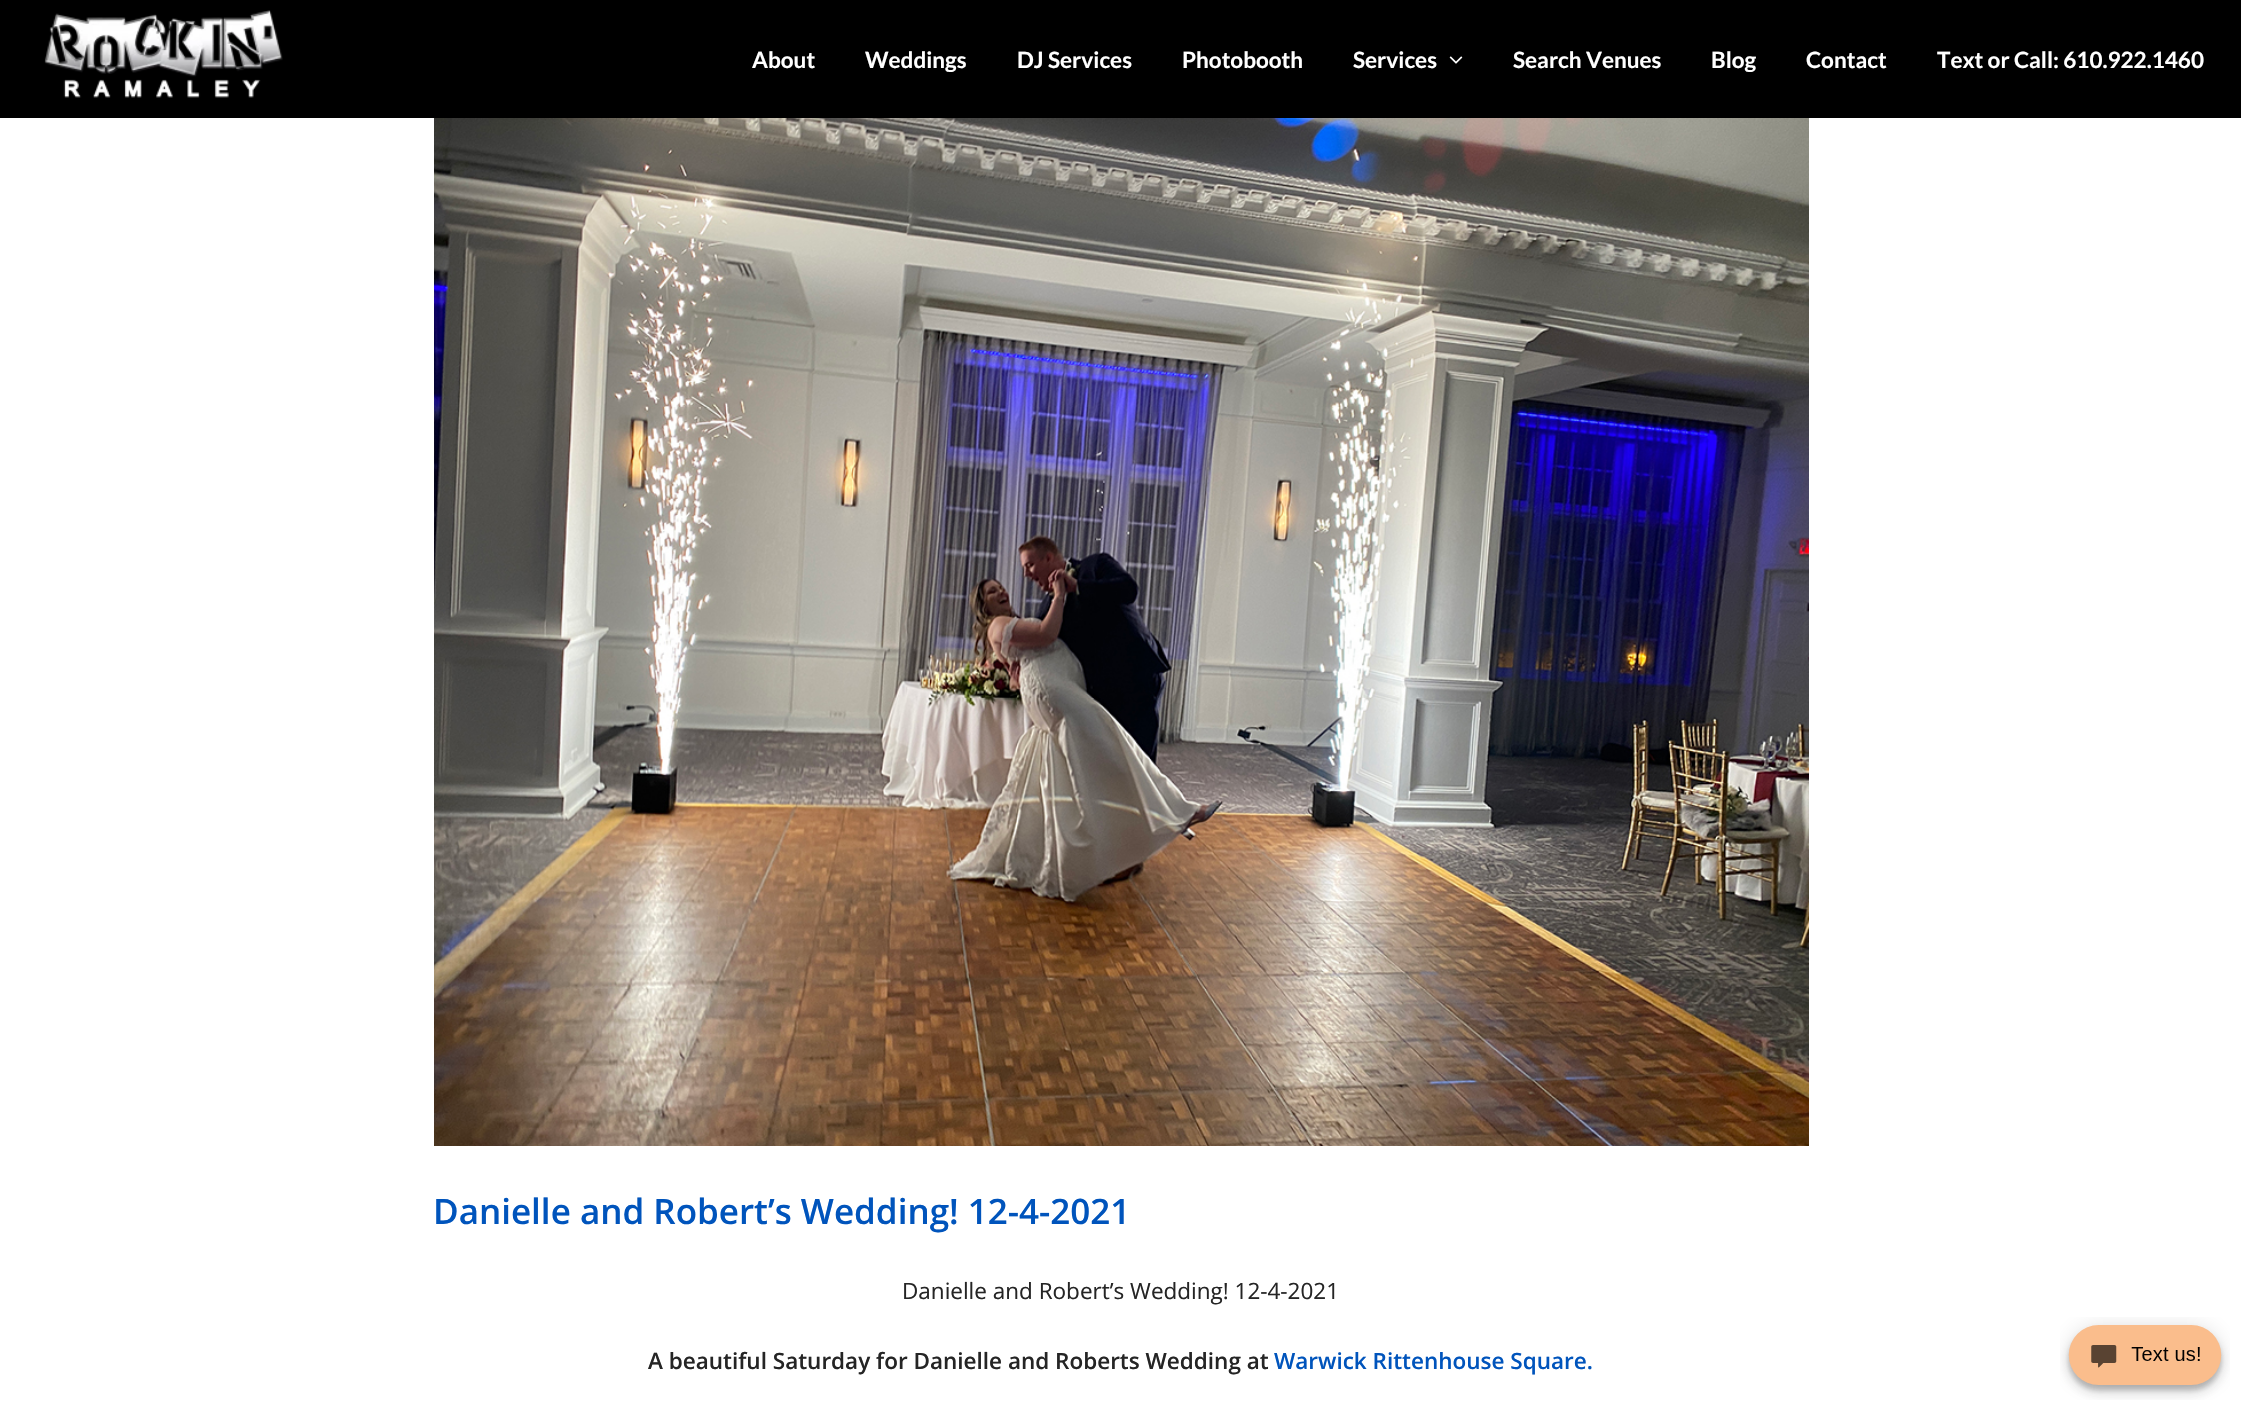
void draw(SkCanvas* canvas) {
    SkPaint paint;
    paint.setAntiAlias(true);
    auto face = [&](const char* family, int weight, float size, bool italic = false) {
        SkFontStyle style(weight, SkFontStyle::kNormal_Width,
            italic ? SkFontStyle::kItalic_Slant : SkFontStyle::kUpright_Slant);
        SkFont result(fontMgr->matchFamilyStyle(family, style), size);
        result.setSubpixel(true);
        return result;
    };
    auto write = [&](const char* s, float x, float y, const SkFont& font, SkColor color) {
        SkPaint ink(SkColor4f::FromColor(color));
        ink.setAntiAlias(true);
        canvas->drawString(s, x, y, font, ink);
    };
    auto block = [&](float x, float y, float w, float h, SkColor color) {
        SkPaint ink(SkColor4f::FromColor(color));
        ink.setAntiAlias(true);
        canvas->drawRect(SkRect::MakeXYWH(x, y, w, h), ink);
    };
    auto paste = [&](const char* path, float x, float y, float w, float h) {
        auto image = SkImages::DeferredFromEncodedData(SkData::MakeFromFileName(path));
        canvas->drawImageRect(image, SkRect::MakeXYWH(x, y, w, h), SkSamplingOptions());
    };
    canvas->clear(SK_ColorWHITE);
    block(0, 0, 2241, 118, SK_ColorBLACK);
    paste("pic1.png", 44, 10, 239, 88);
    auto kFont1 = face("Lato", 700, 22.5f);
    write("About", 752, 68, kFont1, SK_ColorWHITE);
    write("Weddings", 865, 68, kFont1, SK_ColorWHITE);
    write("DJ Services", 1017, 68, kFont1, SK_ColorWHITE);
    write("Photobooth", 1182, 68, kFont1, SK_ColorWHITE);
    write("Services", 1353, 68, kFont1, SK_ColorWHITE);
    paste("pic2.png", 1449, 56, 14, 8);
    write("Search Venues", 1513, 68, kFont1, SK_ColorWHITE);
    write("Blog", 1711, 68, kFont1, SK_ColorWHITE);
    write("Contact", 1806, 68, kFont1, SK_ColorWHITE);
    write("Text or Call: 610.922.1460", 1937, 68, kFont1, SK_ColorWHITE);
    paste("pic3.png", 434, 118, 1375, 1028);
    auto kFont2 = face("Open Sans", 600, 35);
    write("Danielle and Robert’s Wedding! 12-4-2021", 433, 1224, kFont2, SkColorSetRGB(0, 84, 188));
    auto kFont3 = face("Open Sans", 400, 22.5f);
    write("Danielle and Robert’s Wedding! 12-4-2021", 902, 1299, kFont3, SkColorSetRGB(37, 37, 37));
    auto kFont4 = face("Open Sans", 600, 22.5f);
    write("A beautiful Saturday for Danielle and Roberts Wedding at", 648, 1369, kFont4, SkColorSetRGB(37, 37, 37));
    write("Warwick Rittenhouse Square.", 1274, 1369, kFont4, SkColorSetRGB(0, 84, 188));
    paste("pic4.png", 2060, 1317, 170, 83);
}
